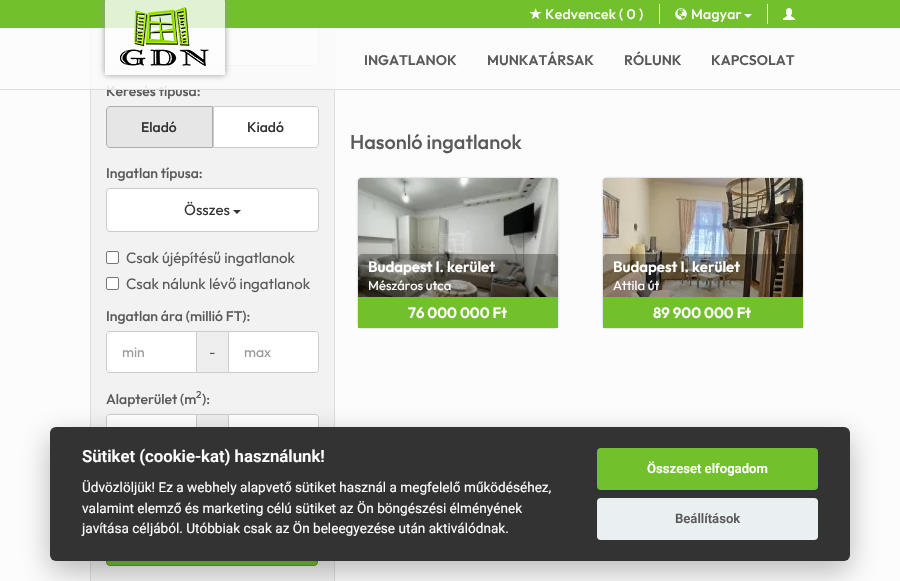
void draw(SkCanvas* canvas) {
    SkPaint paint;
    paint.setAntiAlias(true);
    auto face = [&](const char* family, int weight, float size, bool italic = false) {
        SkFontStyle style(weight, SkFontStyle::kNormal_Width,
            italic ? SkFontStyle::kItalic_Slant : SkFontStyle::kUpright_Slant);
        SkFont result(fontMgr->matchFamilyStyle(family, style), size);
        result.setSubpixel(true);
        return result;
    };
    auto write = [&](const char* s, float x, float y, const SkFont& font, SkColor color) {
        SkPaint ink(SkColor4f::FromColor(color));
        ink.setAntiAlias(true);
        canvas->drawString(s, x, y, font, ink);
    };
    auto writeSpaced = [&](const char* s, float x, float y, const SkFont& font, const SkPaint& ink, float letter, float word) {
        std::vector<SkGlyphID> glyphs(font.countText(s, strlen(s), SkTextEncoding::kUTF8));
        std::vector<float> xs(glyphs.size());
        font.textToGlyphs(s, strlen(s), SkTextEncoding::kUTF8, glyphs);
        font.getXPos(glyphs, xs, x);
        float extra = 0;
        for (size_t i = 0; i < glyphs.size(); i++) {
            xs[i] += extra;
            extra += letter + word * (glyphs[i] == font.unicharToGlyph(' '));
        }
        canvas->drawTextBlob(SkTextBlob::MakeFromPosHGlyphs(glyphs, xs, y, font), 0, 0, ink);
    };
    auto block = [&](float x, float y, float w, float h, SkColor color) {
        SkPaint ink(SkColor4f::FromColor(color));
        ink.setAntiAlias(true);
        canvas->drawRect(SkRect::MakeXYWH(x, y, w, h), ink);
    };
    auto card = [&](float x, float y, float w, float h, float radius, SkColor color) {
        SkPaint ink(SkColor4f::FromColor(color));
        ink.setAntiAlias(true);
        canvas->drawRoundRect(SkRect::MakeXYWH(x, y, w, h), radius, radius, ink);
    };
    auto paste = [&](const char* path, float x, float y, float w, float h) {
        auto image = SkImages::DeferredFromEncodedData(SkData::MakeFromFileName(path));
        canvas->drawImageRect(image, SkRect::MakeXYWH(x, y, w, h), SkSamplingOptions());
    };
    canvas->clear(SkColorSetRGB(252, 252, 252));
    block(91, 28, 243, 553, SkColorSetRGB(242, 242, 242));
    paint.setStyle(SkPaint::kStroke_Style);
    paint.setStrokeWidth(1);
    paint.setColor(SkColorSetRGB(221, 221, 221));
    canvas->drawRect(SkRect::MakeXYWH(90.5f, -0.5f, 244, 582), paint);
    paint.setStyle(SkPaint::kFill_Style);
    paint.setColor(SK_ColorWHITE);
    canvas->drawRoundRect(SkRect::MakeXYWH(106.5f, 24.5f, 212, 41), 3.5f, 3.5f, paint);
    paint.setStyle(SkPaint::kStroke_Style);
    paint.setColor(SkColorSetRGB(204, 204, 204));
    canvas->drawRoundRect(SkRect::MakeXYWH(106.5f, 24.5f, 212, 41), 3.5f, 3.5f, paint);
    auto kFont1 = face("Outfit", 500, 14);
    write("Keresés típusa:", 106, 96, kFont1, SkColorSetRGB(90, 90, 90));
    block(90, 28, 245, 61, SkColorSetARGB(217, 252, 252, 252));
    block(0, 89, 900, 1, SkColorSetRGB(221, 221, 221));
    block(0, 0, 900, 28, SkColorSetRGB(114, 192, 44));
    block(659, 4, 1, 20, SkColorSetRGB(248, 248, 248));
    paste("pic1.png", 529, 8, 13, 11);
    paint.setStyle(SkPaint::kFill_Style);
    paint.setColor(SkColorSetRGB(248, 248, 248));
    writeSpaced("Kedvencek ( 0 )", 545, 19, kFont1, paint, 0.25f, 0);
    block(767, 4, 1, 20, SkColorSetRGB(248, 248, 248));
    paste("pic2.png", 675, 8, 12, 12);
    writeSpaced("Magyar", 691, 19, kFont1, paint, 0.25f, 0);
    canvas->drawPath(SkPathBuilder().moveTo(744, 14).lineTo(752, 14).lineTo(748, 18).close().detach(), paint);
    paste("pic3.png", 783, 8, 12, 12);
    canvas->save();
    canvas->clipPath(SkPathBuilder(SkPathFillType::kEvenOdd).moveTo(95, 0).lineTo(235, 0).lineTo(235, 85).lineTo(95, 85).close().moveTo(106, 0).lineTo(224, 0).cubicTo(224.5f, 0, 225, 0.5f, 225, 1).lineTo(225, 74).cubicTo(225, 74.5f, 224.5f, 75, 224, 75).lineTo(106, 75).cubicTo(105.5f, 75, 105, 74.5f, 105, 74).lineTo(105, 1).cubicTo(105, 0.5f, 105.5f, 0, 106, 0).close().detach(), true);
    paint.setColor(SkColorSetRGB(153, 153, 153));
    paint.setMaskFilter(SkMaskFilter::MakeBlur(kNormal_SkBlurStyle, 3));
    canvas->drawRoundRect(SkRect::MakeXYWH(105, 0, 120, 75), 1, 1, paint);
    paint.setMaskFilter(nullptr);
    canvas->restore();
    card(105, 0, 120, 75, 1, SkColorSetARGB(204, 252, 252, 252));
    paste("pic4.png", 120, 7, 89, 59);
    auto kFont2 = face("Outfit", 600, 14);
    write("INGATLANOK", 364, 65, kFont2, SkColorSetRGB(90, 90, 90));
    write("MUNKATÁRSAK", 487, 65, kFont2, SkColorSetRGB(90, 90, 90));
    write("RÓLUNK", 624, 65, kFont2, SkColorSetRGB(90, 90, 90));
    write("KAPCSOLAT", 711, 65, kFont2, SkColorSetRGB(90, 90, 90));
    paint.setColor(SkColorSetRGB(230, 230, 230));
    canvas->drawPath(SkPathBuilder().moveTo(110, 106.5f).lineTo(212.5f, 106.5f).lineTo(212.5f, 147.5f).lineTo(110, 147.5f).cubicTo(108, 147.5f, 106.5f, 146, 106.5f, 144).lineTo(106.5f, 110).cubicTo(106.5f, 108, 108, 106.5f, 110, 106.5f).close().detach(), paint);
    paint.setStyle(SkPaint::kStroke_Style);
    paint.setColor(SkColorSetRGB(173, 173, 173));
    canvas->drawPath(SkPathBuilder().moveTo(110, 106.5f).lineTo(212.5f, 106.5f).lineTo(212.5f, 147.5f).lineTo(110, 147.5f).cubicTo(108, 147.5f, 106.5f, 146, 106.5f, 144).lineTo(106.5f, 110).cubicTo(106.5f, 108, 108, 106.5f, 110, 106.5f).close().detach(), paint);
    write("Eladó", 141, 132, kFont1, SkColorSetRGB(51, 51, 51));
    paint.setStyle(SkPaint::kFill_Style);
    paint.setColor(SK_ColorWHITE);
    canvas->drawPath(SkPathBuilder().moveTo(213.5f, 106.5f).lineTo(315, 106.5f).cubicTo(317, 106.5f, 318.5f, 108, 318.5f, 110).lineTo(318.5f, 144).cubicTo(318.5f, 146, 317, 147.5f, 315, 147.5f).lineTo(213.5f, 147.5f).close().detach(), paint);
    paint.setStyle(SkPaint::kStroke_Style);
    paint.setColor(SkColorSetRGB(204, 204, 204));
    canvas->drawPath(SkPathBuilder().moveTo(213.5f, 106.5f).lineTo(315, 106.5f).cubicTo(317, 106.5f, 318.5f, 108, 318.5f, 110).lineTo(318.5f, 144).cubicTo(318.5f, 146, 317, 147.5f, 315, 147.5f).lineTo(213.5f, 147.5f).close().detach(), paint);
    write("Kiadó", 247, 132, kFont1, SkColorSetRGB(51, 51, 51));
    write("Ingatlan típusa:", 106, 178, kFont1, SkColorSetRGB(90, 90, 90));
    paint.setStyle(SkPaint::kFill_Style);
    paint.setColor(SK_ColorWHITE);
    canvas->drawRoundRect(SkRect::MakeXYWH(106.5f, 188.5f, 212, 43), 3.5f, 3.5f, paint);
    paint.setStyle(SkPaint::kStroke_Style);
    paint.setColor(SkColorSetRGB(204, 204, 204));
    canvas->drawRoundRect(SkRect::MakeXYWH(106.5f, 188.5f, 212, 43), 3.5f, 3.5f, paint);
    auto kFont3 = face("Outfit", 400, 15);
    write("Összes", 184, 215, kFont3, SkColorSetRGB(51, 51, 51));
    paint.setStyle(SkPaint::kFill_Style);
    paint.setColor(SkColorSetRGB(51, 51, 51));
    canvas->drawPath(SkPathBuilder().moveTo(233, 210).lineTo(241, 210).lineTo(237, 214).close().detach(), paint);
    paint.setColor(SK_ColorWHITE);
    canvas->drawRoundRect(SkRect::MakeXYWH(106.5f, 251.5f, 12, 12), 1.5f, 1.5f, paint);
    paint.setStyle(SkPaint::kStroke_Style);
    paint.setColor(SkColorSetRGB(118, 118, 118));
    canvas->drawRoundRect(SkRect::MakeXYWH(106.5f, 251.5f, 12, 12), 1.5f, 1.5f, paint);
    write("Csak újépítésű ingatlanok", 126, 263, kFont3, SkColorSetRGB(90, 90, 90));
    paint.setStyle(SkPaint::kFill_Style);
    paint.setColor(SK_ColorWHITE);
    canvas->drawRoundRect(SkRect::MakeXYWH(106.5f, 277.5f, 12, 12), 1.5f, 1.5f, paint);
    paint.setStyle(SkPaint::kStroke_Style);
    paint.setColor(SkColorSetRGB(118, 118, 118));
    canvas->drawRoundRect(SkRect::MakeXYWH(106.5f, 277.5f, 12, 12), 1.5f, 1.5f, paint);
    write("Csak nálunk lévő ingatlanok", 126, 289, kFont3, SkColorSetRGB(90, 90, 90));
    write("Ingatlan ára (millió FT):", 106, 321, kFont1, SkColorSetRGB(90, 90, 90));
    paint.setStyle(SkPaint::kFill_Style);
    paint.setColor(SK_ColorWHITE);
    canvas->drawPath(SkPathBuilder().moveTo(110, 331.5f).lineTo(196.5f, 331.5f).lineTo(196.5f, 372.5f).lineTo(110, 372.5f).cubicTo(108, 372.5f, 106.5f, 371, 106.5f, 369).lineTo(106.5f, 335).cubicTo(106.5f, 333, 108, 331.5f, 110, 331.5f).close().detach(), paint);
    paint.setStyle(SkPaint::kStroke_Style);
    paint.setColor(SkColorSetRGB(204, 204, 204));
    canvas->drawPath(SkPathBuilder().moveTo(110, 331.5f).lineTo(196.5f, 331.5f).lineTo(196.5f, 372.5f).lineTo(110, 372.5f).cubicTo(108, 372.5f, 106.5f, 371, 106.5f, 369).lineTo(106.5f, 335).cubicTo(106.5f, 333, 108, 331.5f, 110, 331.5f).close().detach(), paint);
    auto kFont4 = face("Outfit", 400, 14);
    write("min", 122, 357, kFont4, SkColorSetRGB(153, 153, 153));
    block(197, 332, 31, 40, SkColorSetRGB(238, 238, 238));
    block(197, 331, 31, 1, SkColorSetRGB(204, 204, 204));
    block(197, 372, 31, 1, SkColorSetRGB(204, 204, 204));
    write("-", 209, 357, kFont4, SkColorSetRGB(90, 90, 90));
    paint.setStyle(SkPaint::kFill_Style);
    paint.setColor(SK_ColorWHITE);
    canvas->drawPath(SkPathBuilder().moveTo(228.5f, 331.5f).lineTo(315, 331.5f).cubicTo(317, 331.5f, 318.5f, 333, 318.5f, 335).lineTo(318.5f, 369).cubicTo(318.5f, 371, 317, 372.5f, 315, 372.5f).lineTo(228.5f, 372.5f).close().detach(), paint);
    paint.setStyle(SkPaint::kStroke_Style);
    paint.setColor(SkColorSetRGB(204, 204, 204));
    canvas->drawPath(SkPathBuilder().moveTo(228.5f, 331.5f).lineTo(315, 331.5f).cubicTo(317, 331.5f, 318.5f, 333, 318.5f, 335).lineTo(318.5f, 369).cubicTo(318.5f, 371, 317, 372.5f, 315, 372.5f).lineTo(228.5f, 372.5f).close().detach(), paint);
    write("max", 244, 357, kFont4, SkColorSetRGB(153, 153, 153));
    write("Alapterület (m", 106, 404, kFont1, SkColorSetRGB(90, 90, 90));
    auto kFont5 = face("Outfit", 500, 10);
    write("2", 196, 398, kFont5, SkColorSetRGB(90, 90, 90));
    write("):", 202, 404, kFont1, SkColorSetRGB(90, 90, 90));
    paint.setStyle(SkPaint::kFill_Style);
    paint.setColor(SK_ColorWHITE);
    canvas->drawPath(SkPathBuilder().moveTo(110, 414.5f).lineTo(196.5f, 414.5f).lineTo(196.5f, 455.5f).lineTo(110, 455.5f).cubicTo(108, 455.5f, 106.5f, 454, 106.5f, 452).lineTo(106.5f, 418).cubicTo(106.5f, 416, 108, 414.5f, 110, 414.5f).close().detach(), paint);
    paint.setStyle(SkPaint::kStroke_Style);
    paint.setColor(SkColorSetRGB(204, 204, 204));
    canvas->drawPath(SkPathBuilder().moveTo(110, 414.5f).lineTo(196.5f, 414.5f).lineTo(196.5f, 455.5f).lineTo(110, 455.5f).cubicTo(108, 455.5f, 106.5f, 454, 106.5f, 452).lineTo(106.5f, 418).cubicTo(106.5f, 416, 108, 414.5f, 110, 414.5f).close().detach(), paint);
    block(197, 415, 31, 12, SkColorSetRGB(238, 238, 238));
    block(197, 414, 31, 1, SkColorSetRGB(204, 204, 204));
    paint.setStyle(SkPaint::kFill_Style);
    paint.setColor(SK_ColorWHITE);
    canvas->drawPath(SkPathBuilder().moveTo(228.5f, 414.5f).lineTo(315, 414.5f).cubicTo(317, 414.5f, 318.5f, 416, 318.5f, 418).lineTo(318.5f, 452).cubicTo(318.5f, 454, 317, 455.5f, 315, 455.5f).lineTo(228.5f, 455.5f).close().detach(), paint);
    paint.setStyle(SkPaint::kStroke_Style);
    paint.setColor(SkColorSetRGB(204, 204, 204));
    canvas->drawPath(SkPathBuilder().moveTo(228.5f, 414.5f).lineTo(315, 414.5f).cubicTo(317, 414.5f, 318.5f, 416, 318.5f, 418).lineTo(318.5f, 452).cubicTo(318.5f, 454, 317, 455.5f, 315, 455.5f).lineTo(228.5f, 455.5f).close().detach(), paint);
    paint.setStyle(SkPaint::kFill_Style);
    paint.setColor(SkColorSetRGB(114, 192, 44));
    canvas->drawRoundRect(SkRect::MakeXYWH(106.5f, 524.5f, 211, 41), 3.5f, 3.5f, paint);
    paint.setStyle(SkPaint::kStroke_Style);
    paint.setColor(SkColorSetRGB(89, 151, 34));
    canvas->drawRoundRect(SkRect::MakeXYWH(106.5f, 524.5f, 211, 41), 3.5f, 3.5f, paint);
    auto kFont6 = face("Outfit", 500, 20);
    write("Hasonló ingatlanok", 350, 149, kFont6, SkColorSetRGB(90, 90, 90));
    paint.setStyle(SkPaint::kFill_Style);
    paint.setColor(SkColorSetARGB(77, 0, 0, 0));
    paint.setMaskFilter(SkMaskFilter::MakeBlur(kNormal_SkBlurStyle, 1));
    canvas->drawRoundRect(SkRect::MakeXYWH(358, 178, 200, 150), 4, 4, paint);
    paint.setMaskFilter(nullptr);
    paste("pic5.png", 358, 178, 200, 119);
    canvas->drawPath(SkPathBuilder().moveTo(362, 254).lineTo(554, 254).cubicTo(556, 254, 558, 256, 558, 258).lineTo(558, 328).lineTo(358, 328).lineTo(358, 258).cubicTo(358, 256, 360, 254, 362, 254).close().detach(), paint);
    auto kFont7 = face("Outfit", 600, 15);
    write("Budapest I. kerület", 368, 272, kFont7, SK_ColorWHITE);
    auto kFont8 = face("Outfit", 400, 13);
    write("Mészáros utca", 368, 290, kFont8, SK_ColorWHITE);
    block(358, 297, 200, 31, SkColorSetRGB(114, 192, 44));
    write("76 000 000 Ft", 408, 318, kFont7, SK_ColorWHITE);
    paint.setMaskFilter(SkMaskFilter::MakeBlur(kNormal_SkBlurStyle, 1));
    canvas->drawRoundRect(SkRect::MakeXYWH(603, 178, 200, 150), 4, 4, paint);
    paint.setMaskFilter(nullptr);
    paste("pic6.png", 603, 178, 200, 119);
    canvas->drawPath(SkPathBuilder().moveTo(607, 254).lineTo(799, 254).cubicTo(801, 254, 803, 256, 803, 258).lineTo(803, 328).lineTo(603, 328).lineTo(603, 258).cubicTo(603, 256, 605, 254, 607, 254).close().detach(), paint);
    write("Budapest I. kerület", 613, 272, kFont7, SK_ColorWHITE);
    write("Attila út", 613, 290, kFont8, SK_ColorWHITE);
    block(603, 297, 200, 31, SkColorSetRGB(114, 192, 44));
    write("89 900 000 Ft", 653, 318, kFont7, SK_ColorWHITE);
    paint.setColor(SkColorSetARGB(71, 2, 2, 3));
    paint.setMaskFilter(SkMaskFilter::MakeBlur(kNormal_SkBlurStyle, 15));
    canvas->drawRoundRect(SkRect::MakeXYWH(50, 437, 800, 134), 6, 6, paint);
    paint.setMaskFilter(nullptr);
    card(50, 427, 800, 134, 6, SkColorSetRGB(51, 51, 51));
    auto kFont9 = face("Roboto", 600, 16.75f);
    write("Sütiket (cookie-kat) használunk!", 82, 462, kFont9, SK_ColorWHITE);
    auto kFont10 = face("Roboto", 400, 13.6f);
    write("Üdvözlöljük! Ez a webhely alapvető sütiket használ a megfelelő működéséhez,", 82, 492, kFont10, SK_ColorWHITE);
    write("valamint elemző és marketing célú sütiket az Ön böngészési élményének", 82, 513, kFont10, SK_ColorWHITE);
    write("javítása céljából. Utóbbiak csak az Ön beleegyezése után aktiválódnak.", 82, 533, kFont10, SK_ColorWHITE);
    card(597, 448, 221, 42, 4, SkColorSetRGB(114, 192, 44));
    auto kFont11 = face("Roboto", 600, 13.1f);
    write("Összeset elfogadom", 647, 473, kFont11, SK_ColorWHITE);
    card(597, 498, 221, 42, 4, SkColorSetRGB(234, 239, 242));
    write("Beállítások", 675, 523, kFont11, SkColorSetRGB(90, 90, 90));
}
